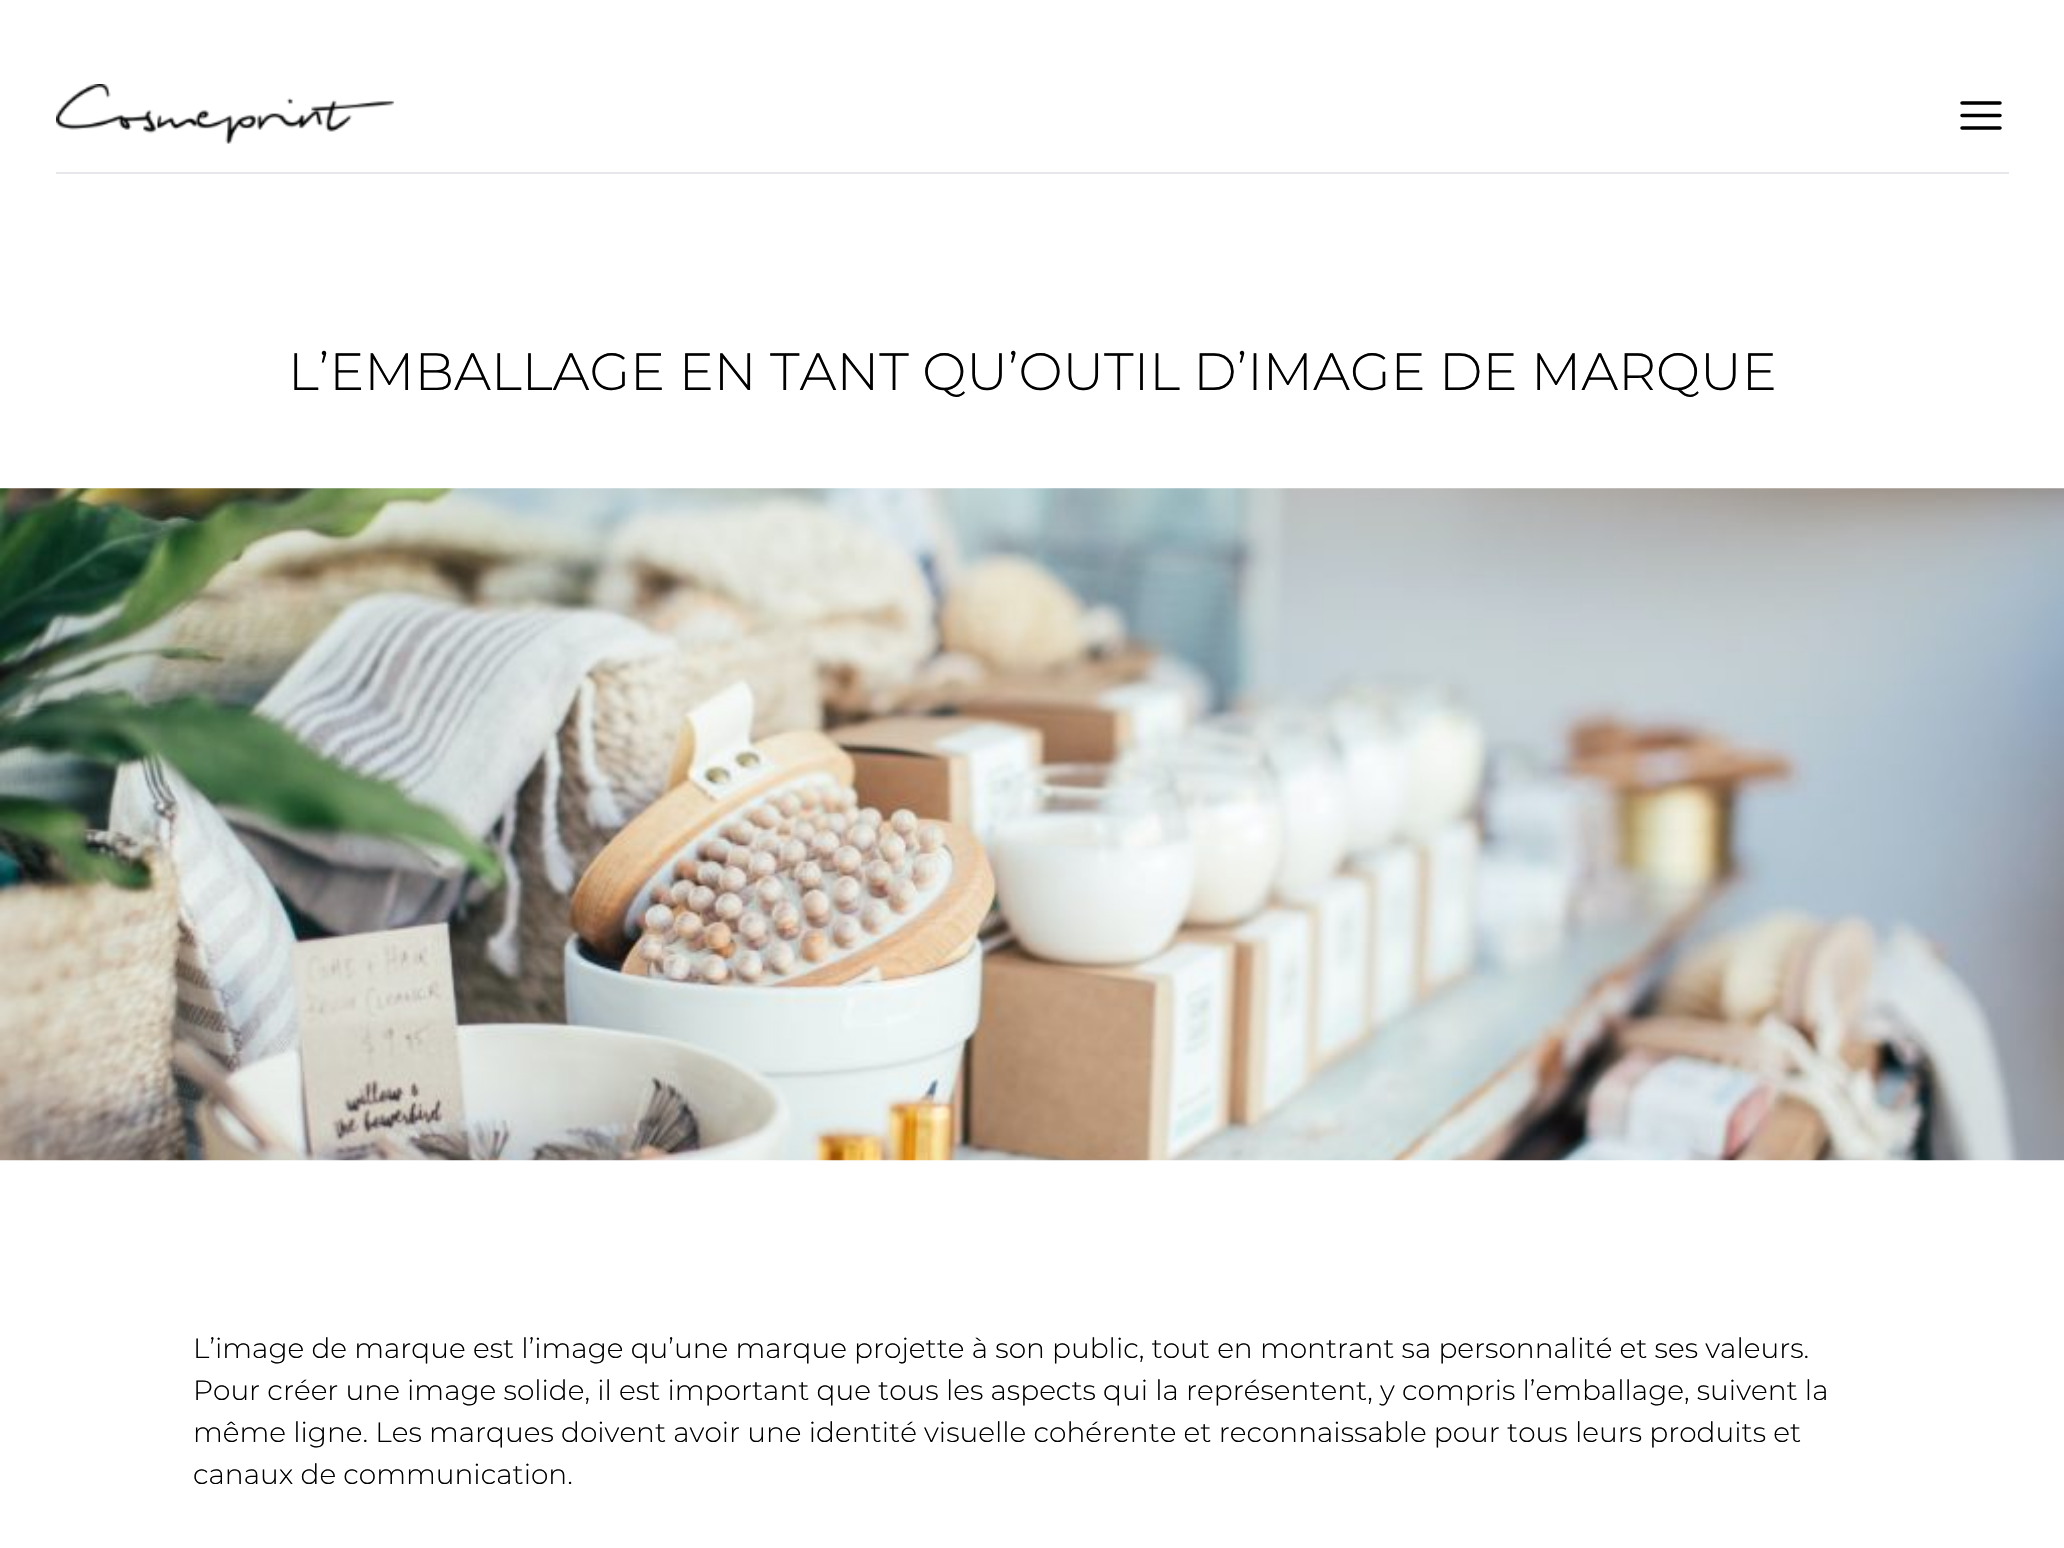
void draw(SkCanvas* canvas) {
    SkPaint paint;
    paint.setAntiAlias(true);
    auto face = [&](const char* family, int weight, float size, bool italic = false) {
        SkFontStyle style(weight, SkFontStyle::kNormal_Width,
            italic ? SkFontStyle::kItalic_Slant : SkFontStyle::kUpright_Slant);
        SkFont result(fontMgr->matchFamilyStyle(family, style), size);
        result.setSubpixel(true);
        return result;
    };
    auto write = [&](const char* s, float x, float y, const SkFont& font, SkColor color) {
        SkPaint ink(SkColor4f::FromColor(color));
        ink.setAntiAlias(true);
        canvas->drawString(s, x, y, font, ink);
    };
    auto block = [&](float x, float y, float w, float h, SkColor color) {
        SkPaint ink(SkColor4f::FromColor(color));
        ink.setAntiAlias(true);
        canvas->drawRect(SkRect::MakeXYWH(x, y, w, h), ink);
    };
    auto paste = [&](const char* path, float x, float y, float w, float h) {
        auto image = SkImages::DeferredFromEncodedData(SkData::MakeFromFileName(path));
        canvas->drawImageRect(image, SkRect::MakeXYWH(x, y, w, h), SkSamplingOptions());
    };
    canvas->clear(SK_ColorWHITE);
    block(56, 172, 1953, 2, SkColorSetRGB(229, 231, 235));
    paste("pic1.png", 56, 84, 338, 60);
    paint.setStyle(SkPaint::kStroke_Style);
    paint.setStrokeWidth(3.5f);
    paint.setStrokeCap(SkPaint::kRound_Cap);
    paint.setStrokeJoin(SkPaint::kRound_Join);
    paint.setColor(SK_ColorBLACK);
    canvas->drawPath(SkPathBuilder().moveTo(1962, 103).lineTo(2000, 103).moveTo(1962, 115.5f).lineTo(2000, 115.5f).moveTo(1962, 128).lineTo(2000, 128).detach(), paint);
    auto kFont1 = face("Montserrat", 300, 52.5f);
    write("L’EMBALLAGE EN TANT QU’OUTIL D’IMAGE DE MARQUE", 288, 390, kFont1, SK_ColorBLACK);
    paste("pic2.png", 0, 488, 2064, 673);
    auto kFont2 = face("Montserrat", 300, 28);
    write("L’image de marque est l’image qu’une marque projette à son public, tout en montrant sa personnalité et ses valeurs.", 193, 1358, kFont2, SK_ColorBLACK);
    write("Pour créer une image solide, il est important que tous les aspects qui la représentent, y compris l’emballage, suivent la", 193, 1400, kFont2, SK_ColorBLACK);
    write("même ligne. Les marques doivent avoir une identité visuelle cohérente et reconnaissable pour tous leurs produits et", 193, 1442, kFont2, SK_ColorBLACK);
    write("canaux de communication.", 193, 1484, kFont2, SK_ColorBLACK);
}
